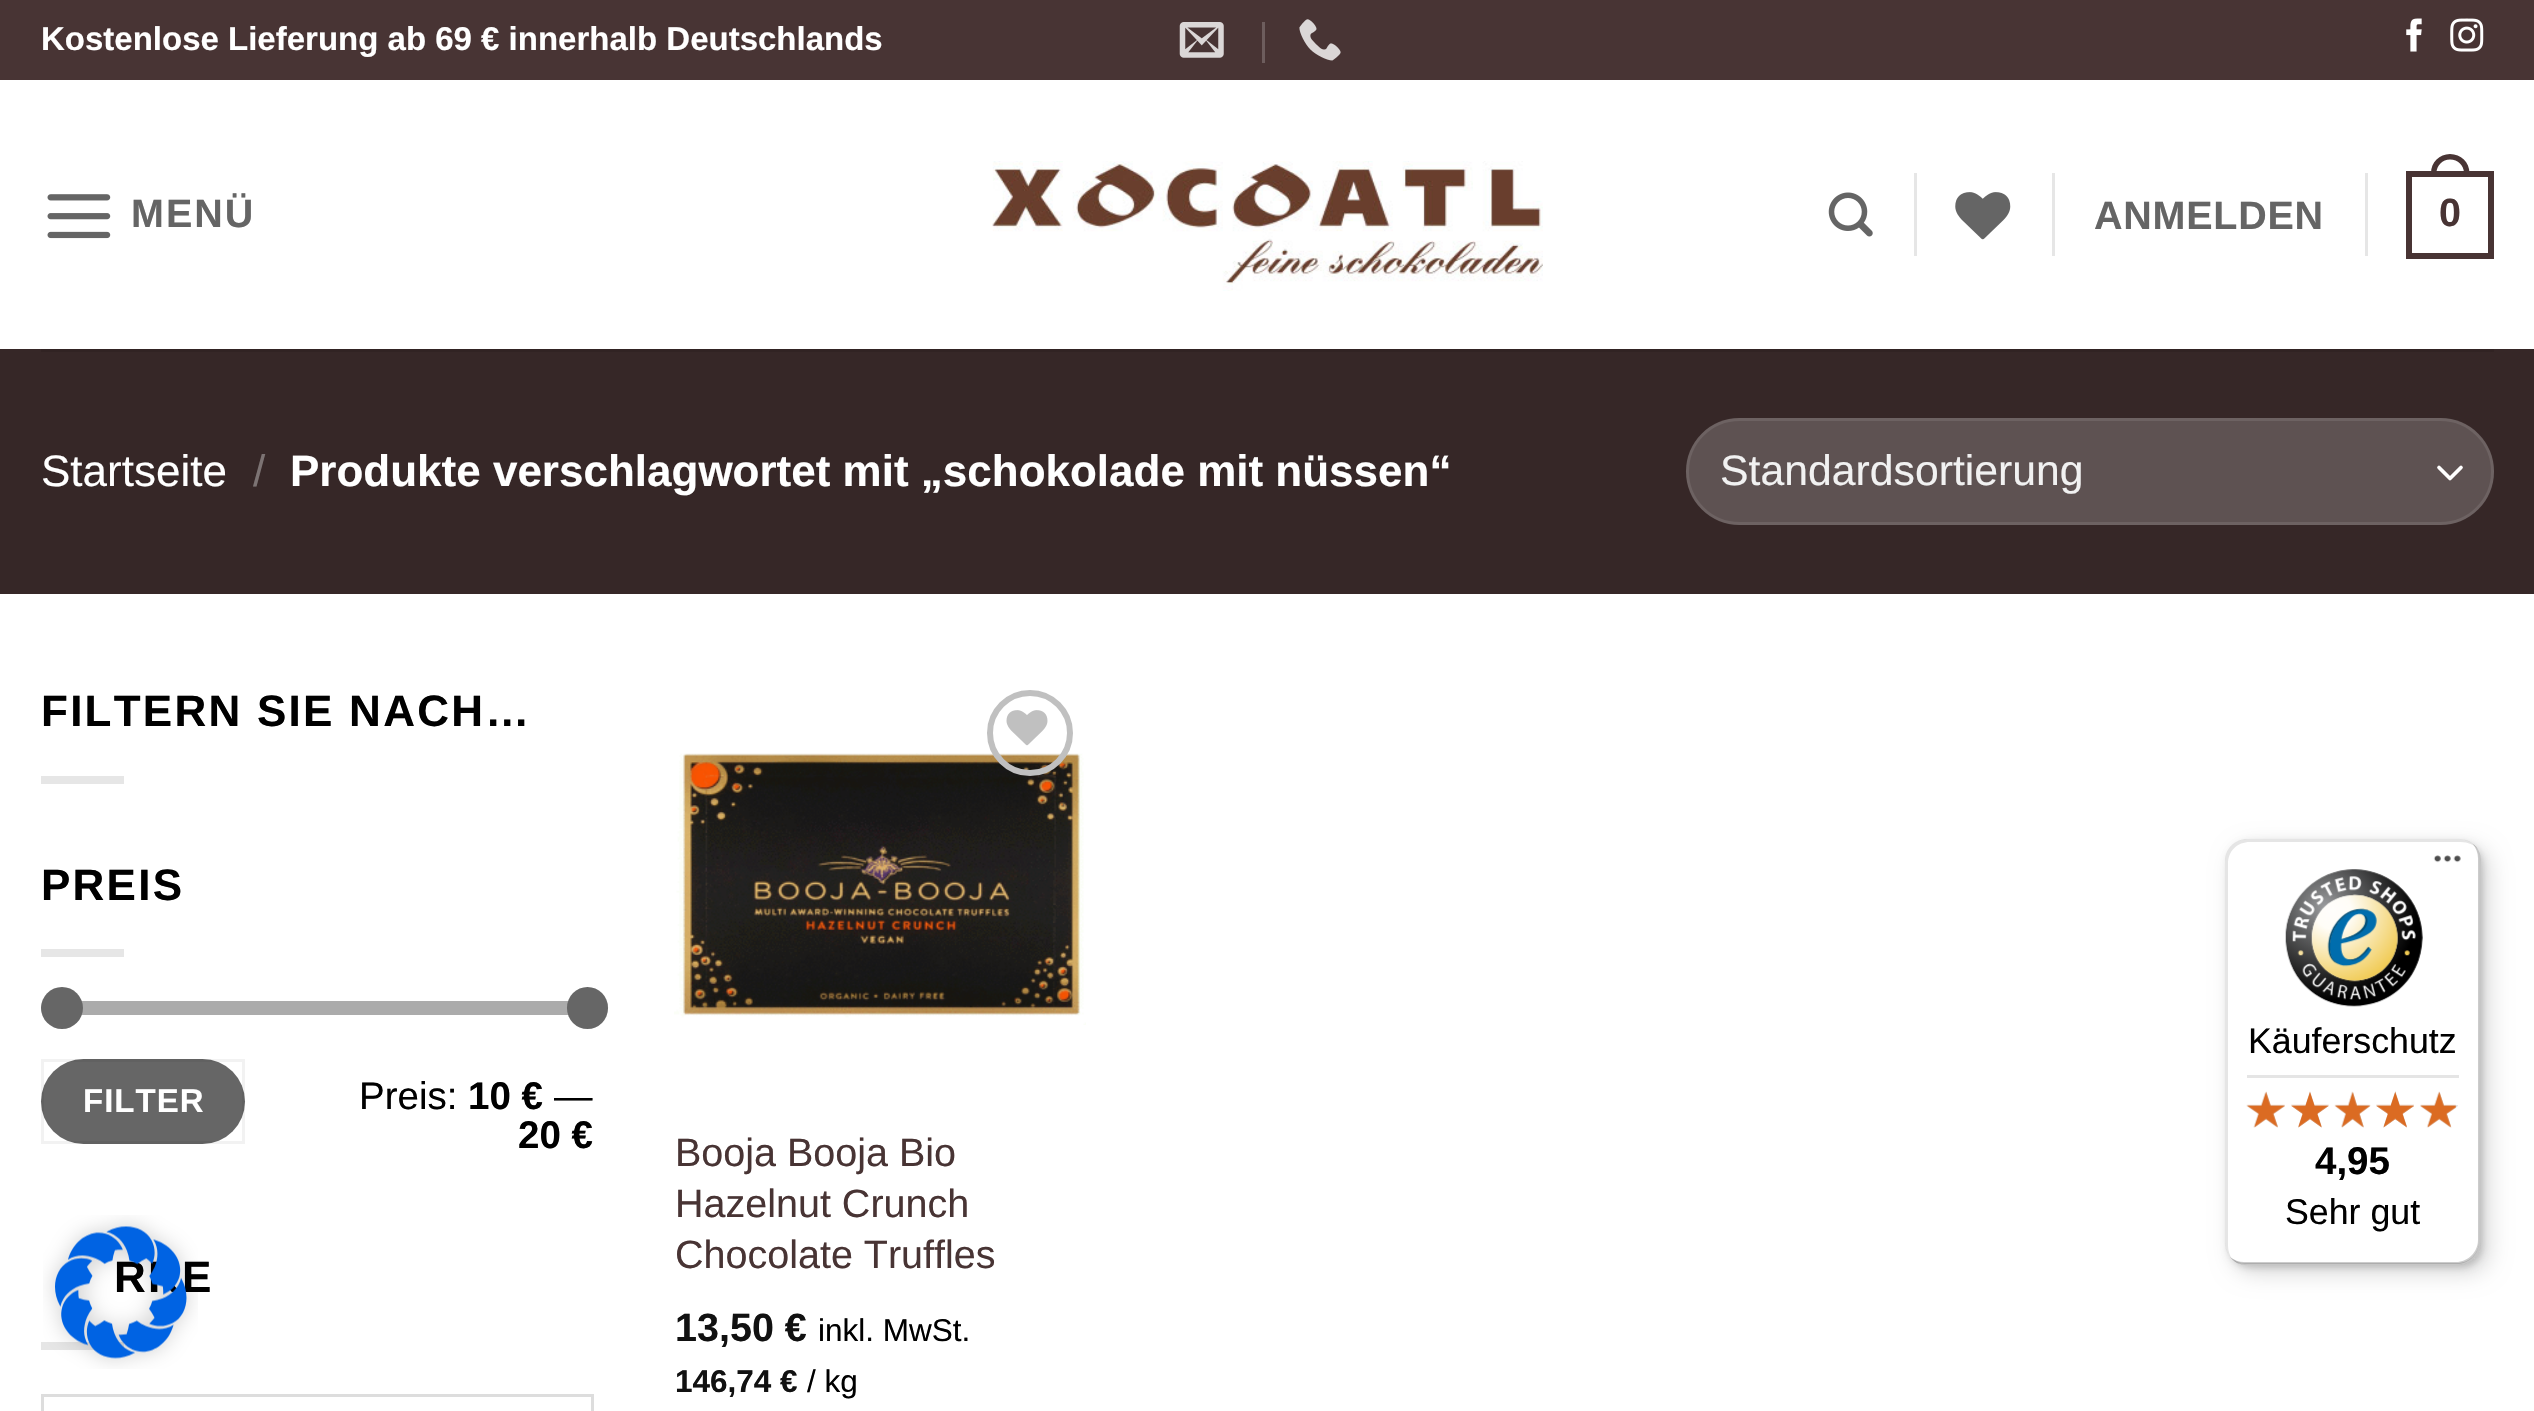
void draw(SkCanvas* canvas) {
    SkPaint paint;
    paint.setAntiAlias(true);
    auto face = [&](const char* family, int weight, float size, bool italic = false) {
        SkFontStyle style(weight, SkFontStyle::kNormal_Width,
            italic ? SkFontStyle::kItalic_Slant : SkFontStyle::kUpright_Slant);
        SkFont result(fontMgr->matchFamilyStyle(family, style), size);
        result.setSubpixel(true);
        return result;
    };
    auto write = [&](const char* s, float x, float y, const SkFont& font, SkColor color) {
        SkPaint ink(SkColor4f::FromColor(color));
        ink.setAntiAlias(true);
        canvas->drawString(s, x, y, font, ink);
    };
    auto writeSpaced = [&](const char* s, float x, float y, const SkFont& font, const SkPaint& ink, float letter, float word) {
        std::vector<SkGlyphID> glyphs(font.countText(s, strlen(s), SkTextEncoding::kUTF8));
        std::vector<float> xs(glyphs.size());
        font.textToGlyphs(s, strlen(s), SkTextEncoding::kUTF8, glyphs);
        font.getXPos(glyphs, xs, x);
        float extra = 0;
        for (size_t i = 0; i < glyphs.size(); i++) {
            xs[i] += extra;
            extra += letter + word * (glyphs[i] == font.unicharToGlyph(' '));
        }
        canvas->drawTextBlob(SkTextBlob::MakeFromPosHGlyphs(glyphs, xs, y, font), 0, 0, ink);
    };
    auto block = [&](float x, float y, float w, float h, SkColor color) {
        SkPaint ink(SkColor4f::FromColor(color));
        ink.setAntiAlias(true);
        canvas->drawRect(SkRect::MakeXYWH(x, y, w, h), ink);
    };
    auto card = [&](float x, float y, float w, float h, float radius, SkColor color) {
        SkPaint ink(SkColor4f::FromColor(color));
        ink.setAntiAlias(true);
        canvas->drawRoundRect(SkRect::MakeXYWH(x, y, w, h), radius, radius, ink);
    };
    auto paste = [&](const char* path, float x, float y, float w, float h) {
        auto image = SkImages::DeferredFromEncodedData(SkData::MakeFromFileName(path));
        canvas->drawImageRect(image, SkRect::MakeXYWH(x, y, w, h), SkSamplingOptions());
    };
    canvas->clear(SK_ColorWHITE);
    block(0, 0, 2534, 80, SkColorSetRGB(72, 52, 52));
    auto kFont1 = face("Liberation Sans", 700, 33);
    write("Kostenlose Lieferung ab 69 € innerhalb Deutschlands", 41, 50, kFont1, SK_ColorWHITE);
    paste("pic1.png", 1179, 22, 45, 36);
    block(1262, 22, 3, 41, SkColorSetRGB(109, 93, 93));
    paste("pic2.png", 1299, 19, 42, 42);
    paste("pic3.png", 2406, 18, 16, 34);
    paste("pic4.png", 2450, 18, 34, 34);
    paste("pic5.png", 47, 194, 64, 45);
    auto kFont2 = face("Liberation Sans", 700, 39.5f);
    paint.setColor(SkColorSetRGB(101, 101, 101));
    writeSpaced("MENÜ", 131, 227, kFont2, paint, 2, 0);
    paste("pic6.png", 992, 161, 551, 130);
    paste("pic7.png", 1828, 192, 45, 45);
    block(1914, 173, 3, 83, SkColorSetRGB(230, 230, 230));
    paste("pic8.png", 1955, 192, 56, 48);
    block(2052, 173, 3, 83, SkColorSetRGB(230, 230, 230));
    writeSpaced("ANMELDEN", 2094, 229, kFont2, paint, 0.75f, 0);
    block(2365, 173, 3, 83, SkColorSetRGB(230, 230, 230));
    paint.setStyle(SkPaint::kStroke_Style);
    paint.setStrokeWidth(6);
    paint.setColor(SkColorSetRGB(72, 52, 52));
    canvas->drawRect(SkRect::MakeXYWH(2409, 174, 82, 82), paint);
    paint.setStyle(SkPaint::kFill_Style);
    canvas->drawPath(SkPathBuilder(SkPathFillType::kEvenOdd).moveTo(2450, 154).cubicTo(2461, 154, 2469.5f, 162.5f, 2469.5f, 173).lineTo(2469.5f, 176).lineTo(2431, 176).lineTo(2431, 173).cubicTo(2431, 162.5f, 2439.5f, 154, 2450, 154).close().moveTo(2450, 159.5f).cubicTo(2458, 159.5f, 2464, 165.5f, 2464, 173).lineTo(2464, 176).lineTo(2436.5f, 176).lineTo(2436.5f, 173).cubicTo(2436.5f, 165.5f, 2442.5f, 159.5f, 2450, 159.5f).close().detach(), paint);
    writeSpaced("0", 2439, 226, kFont2, paint, 0.75f, 0);
    block(0, 349, 2534, 245, SkColorSetRGB(54, 39, 39));
    block(41, 349, 2453, 3, SkColorSetRGB(49, 35, 35));
    auto kFont3 = face("Liberation Sans", 400, 44);
    write("Startseite", 41, 486, kFont3, SK_ColorWHITE);
    write("/", 253, 486, kFont3, SkColorSetRGB(124, 115, 115));
    auto kFont4 = face("Liberation Sans", 700, 44);
    write("Produkte verschlagwortet mit „schokolade mit nüssen“", 290, 486, kFont4, SK_ColorWHITE);
    card(1686, 418, 808, 107, 53.5f, SkColorSetRGB(94, 82, 82));
    paint.setStyle(SkPaint::kStroke_Style);
    paint.setStrokeWidth(3.7f);
    paint.setStrokeCap(SkPaint::kRound_Cap);
    paint.setStrokeJoin(SkPaint::kRound_Join);
    paint.setColor(SK_ColorWHITE);
    canvas->drawPath(SkPathBuilder().moveTo(2439, 467.5f).lineTo(2450, 478.5f).lineTo(2461, 467.5f).detach(), paint);
    paint.setStrokeWidth(3);
    paint.setStrokeCap(SkPaint::kButt_Cap);
    paint.setStrokeJoin(SkPaint::kMiter_Join);
    paint.setColor(SkColorSetARGB(23, 255, 255, 255));
    canvas->drawRoundRect(SkRect::MakeXYWH(1687.5f, 419.5f, 805, 104), 52, 52, paint);
    auto kFont5 = face("Liberation Sans", 400, 42.75f);
    write("Standardsortierung", 1720, 485, kFont5, SkColorSetRGB(241, 241, 241));
    paint.setStyle(SkPaint::kFill_Style);
    paint.setColor(SK_ColorBLACK);
    writeSpaced("FILTERN SIE NACH…", 41, 726, kFont4, paint, 2.25f, 0);
    block(41, 776, 83, 8, SkColorSetRGB(230, 230, 230));
    writeSpaced("PREIS", 41, 900, kFont4, paint, 2.25f, 0);
    block(41, 949, 83, 8, SkColorSetRGB(230, 230, 230));
    card(41, 1001, 553, 14, 7, SkColorSetRGB(241, 241, 241));
    card(41, 1001, 553, 14, 7, SkColorSetARGB(128, 102, 102, 102));
    paint.setColor(SkColorSetRGB(102, 102, 102));
    canvas->drawCircle(62, 1008, 21, paint);
    card(567, 987, 41, 42, 20.5f, SkColorSetRGB(102, 102, 102));
    card(41, 1059, 204, 85, 42.5f, SkColorSetRGB(102, 102, 102));
    paint.setStyle(SkPaint::kStroke_Style);
    paint.setColor(SkColorSetARGB(13, 0, 0, 0));
    canvas->drawRect(SkRect::MakeXYWH(42.5f, 1060.5f, 201, 82), paint);
    paint.setStyle(SkPaint::kFill_Style);
    paint.setColor(SK_ColorWHITE);
    writeSpaced("FILTER", 83, 1112, kFont1, paint, 1, 0);
    auto kFont6 = face("Liberation Sans", 400, 38.5f);
    write("Preis:", 359, 1109, kFont6, SK_ColorBLACK);
    auto kFont7 = face("Liberation Sans", 700, 38.5f);
    write("10 €", 468, 1109, kFont7, SK_ColorBLACK);
    write("—", 554, 1109, kFont6, SK_ColorBLACK);
    write("20 €", 518, 1148, kFont7, SK_ColorBLACK);
    paint.setColor(SK_ColorBLACK);
    writeSpaced("RKE", 114, 1292, kFont4, paint, 2.25f, 0);
    block(41, 1342, 83, 8, SkColorSetRGB(230, 230, 230));
    paint.setStyle(SkPaint::kStroke_Style);
    paint.setColor(SkColorSetRGB(221, 221, 221));
    canvas->drawRect(SkRect::MakeXYWH(42.5f, 1395.5f, 550, 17), paint);
    paste("pic10.png", 674, 753, 412, 272);
    paint.setStrokeWidth(6);
    paint.setColor(SkColorSetRGB(192, 192, 192));
    canvas->drawCircle(1030, 733, 40, paint);
    paste("pic9.png", 1006, 710, 42, 36);
    auto kFont8 = face("Liberation Sans", 400, 39.5f);
    write("Booja Booja Bio", 675, 1166, kFont8, SkColorSetRGB(72, 52, 52));
    write("Hazelnut Crunch", 675, 1217, kFont8, SkColorSetRGB(72, 52, 52));
    write("Chocolate Truffles", 675, 1268, kFont8, SkColorSetRGB(72, 52, 52));
    write("13,50 €", 675, 1341, kFont2, SkColorSetRGB(17, 17, 17));
    auto kFont9 = face("Liberation Sans", 400, 31.5f);
    write("inkl. MwSt.", 818, 1341, kFont9, SK_ColorBLACK);
    auto kFont10 = face("Liberation Sans", 700, 31.5f);
    write("146,74 €", 675, 1392, kFont10, SkColorSetRGB(17, 17, 17));
    write("/ kg", 807, 1392, kFont9, SK_ColorBLACK);
    paint.setStyle(SkPaint::kFill_Style);
    paint.setColor(SkColorSetARGB(38, 0, 0, 0));
    paint.setMaskFilter(SkMaskFilter::MakeBlur(kNormal_SkBlurStyle, 11));
    canvas->drawRoundRect(SkRect::MakeXYWH(2233, 847, 256, 426), 22, 22, paint);
    paint.setMaskFilter(nullptr);
    paint.setMaskFilter(SkMaskFilter::MakeBlur(kNormal_SkBlurStyle, 3));
    canvas->drawRoundRect(SkRect::MakeXYWH(2228, 842, 255, 426), 22, 22, paint);
    paint.setMaskFilter(nullptr);
    card(2225, 839, 256, 426, 22, SK_ColorWHITE);
    paint.setColor(SkColorSetARGB(26, 0, 0, 0));
    canvas->drawPath(SkPathBuilder().moveTo(2250, 842).lineTo(2461, 842).cubicTo(2468, 842, 2474, 845, 2478, 849).cubicTo(2474, 843, 2467, 839, 2459, 839).lineTo(2247, 839).cubicTo(2235, 839, 2225, 849, 2225, 861).lineTo(2225, 1243).cubicTo(2225, 1250, 2228, 1255, 2232, 1259).cubicTo(2230, 1256, 2228, 1251, 2228, 1246).lineTo(2228, 864).cubicTo(2228, 851, 2237, 842, 2250, 842).close().detach(), paint);
    paint.setColor(SkColorSetARGB(51, 0, 0, 0));
    canvas->drawPath(SkPathBuilder().moveTo(2230, 1257).cubicTo(2234, 1262, 2240, 1265, 2247, 1265).lineTo(2459, 1265).cubicTo(2471, 1265, 2481, 1255, 2481, 1243).lineTo(2481, 861).cubicTo(2481, 854, 2478, 848, 2473, 844).cubicTo(2476, 848, 2478, 853, 2478, 858).lineTo(2478, 1240).cubicTo(2478, 1252, 2468, 1262, 2456, 1262).lineTo(2244, 1262).cubicTo(2239, 1262, 2234, 1260, 2230, 1257).close().detach(), paint);
    paint.setColor(SkColorSetARGB(51, 50, 50, 50));
    canvas->drawPath(SkPathBuilder().moveTo(2231, 1258).cubicTo(2235, 1263, 2241, 1265, 2247, 1265).lineTo(2459, 1265).cubicTo(2471, 1265, 2481, 1255, 2481, 1243).lineTo(2481, 861).cubicTo(2481, 854, 2478, 848, 2473, 844).cubicTo(2477, 848, 2479, 853, 2479, 859).lineTo(2479, 1241).cubicTo(2479, 1254, 2469, 1263, 2457, 1263).lineTo(2245, 1263).cubicTo(2240, 1263, 2235, 1261, 2231, 1258).close().detach(), paint);
    paint.setColor(SkColorSetARGB(77, 255, 255, 255));
    canvas->drawPath(SkPathBuilder().moveTo(2236, 1262).cubicTo(2239, 1264, 2243, 1265, 2247, 1265).lineTo(2459, 1265).cubicTo(2471, 1265, 2481, 1255, 2481, 1243).lineTo(2481, 861).cubicTo(2481, 854, 2478, 848, 2473, 844).cubicTo(2477, 848, 2479, 853, 2479, 859).lineTo(2479, 1242).cubicTo(2479, 1254, 2469, 1264, 2457, 1264).lineTo(2245, 1264).cubicTo(2242, 1264, 2239, 1263, 2236, 1262).close().detach(), paint);
    paste("pic11.png", 2433, 855, 28, 8);
    paste("pic12.png", 2285, 869, 138, 138);
    auto kFont11 = face("Liberation Sans", 400, 35.75f);
    write("Käuferschutz", 2248, 1053, kFont11, SK_ColorBLACK);
    block(2247, 1075, 212, 3, SkColorSetRGB(229, 229, 229));
    paste("pic13.png", 2246, 1092, 39, 36);
    paste("pic14.png", 2291, 1092, 38, 36);
    paste("pic15.png", 2335, 1092, 36, 36);
    paste("pic16.png", 2376, 1091, 38, 37);
    paste("pic17.png", 2420, 1092, 38, 36);
    paste("pic18.png", 2246, 1091, 39, 37);
    paste("pic19.png", 2291, 1091, 38, 37);
    paste("pic20.png", 2334, 1091, 37, 37);
    paste("pic21.png", 2376, 1091, 38, 37);
    paste("pic22.png", 2420, 1091, 36, 37);
    write("4,95", 2315, 1174, kFont7, SK_ColorBLACK);
    write("Sehr gut", 2285, 1224, kFont11, SK_ColorBLACK);
    paste("pic23.png", 43, 1215, 155, 154);
}
